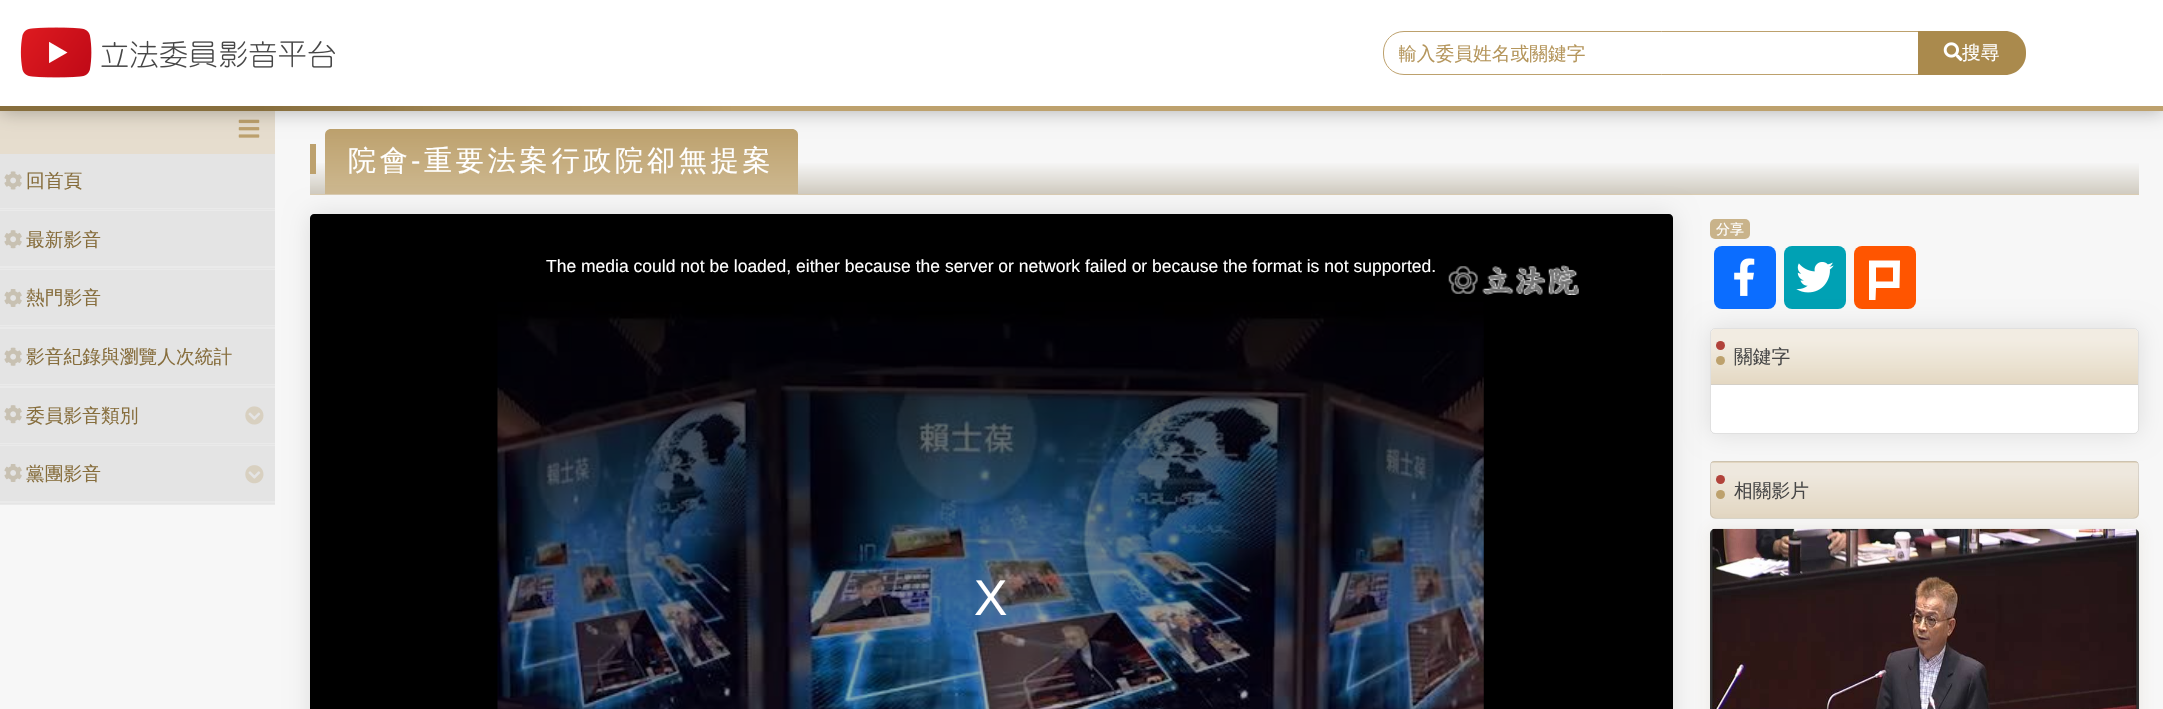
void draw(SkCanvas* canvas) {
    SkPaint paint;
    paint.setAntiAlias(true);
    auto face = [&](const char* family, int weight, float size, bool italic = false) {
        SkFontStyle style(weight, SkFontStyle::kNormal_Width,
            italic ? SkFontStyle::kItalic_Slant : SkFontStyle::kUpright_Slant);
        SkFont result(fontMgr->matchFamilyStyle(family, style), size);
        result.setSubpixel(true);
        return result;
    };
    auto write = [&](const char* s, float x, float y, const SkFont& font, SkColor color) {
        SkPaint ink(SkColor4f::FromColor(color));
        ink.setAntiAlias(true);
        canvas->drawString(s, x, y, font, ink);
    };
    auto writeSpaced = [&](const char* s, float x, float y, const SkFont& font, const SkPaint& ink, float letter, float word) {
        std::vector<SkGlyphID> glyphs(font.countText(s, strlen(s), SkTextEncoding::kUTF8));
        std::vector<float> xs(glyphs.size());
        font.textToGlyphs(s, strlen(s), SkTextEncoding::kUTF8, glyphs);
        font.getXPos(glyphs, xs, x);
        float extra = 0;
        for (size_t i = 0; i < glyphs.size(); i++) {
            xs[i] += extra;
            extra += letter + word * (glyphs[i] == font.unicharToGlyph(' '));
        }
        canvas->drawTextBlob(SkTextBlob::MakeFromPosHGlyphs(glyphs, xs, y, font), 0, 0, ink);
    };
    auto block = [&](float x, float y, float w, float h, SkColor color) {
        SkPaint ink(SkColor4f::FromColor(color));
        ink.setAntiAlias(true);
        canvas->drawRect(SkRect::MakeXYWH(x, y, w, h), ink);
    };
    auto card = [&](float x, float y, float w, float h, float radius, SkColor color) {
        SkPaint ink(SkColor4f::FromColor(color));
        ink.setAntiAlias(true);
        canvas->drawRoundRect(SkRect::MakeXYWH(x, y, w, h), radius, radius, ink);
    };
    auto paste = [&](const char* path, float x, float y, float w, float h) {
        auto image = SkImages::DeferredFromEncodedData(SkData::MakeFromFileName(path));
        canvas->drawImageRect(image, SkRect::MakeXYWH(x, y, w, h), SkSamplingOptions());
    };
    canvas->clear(SkColorSetRGB(247, 247, 247));
    block(0, 111, 275, 43, SkColorSetRGB(230, 221, 206));
    paste("pic3.png", 238, 119, 22, 19);
    {
        const SkColor colors[] = {SkColorSetRGB(247, 247, 247), SkColorSetRGB(208, 203, 192)};
        const float stops[] = {0.5f, 1};
        const SkPoint ends[] = {{1224, 129}, {1224, 194}};
        paint.setShader(SkGradientShader::MakeLinear(ends, colors, stops, 2, SkTileMode::kClamp));
        paint.setAlpha(255);
    }
    canvas->drawRect(SkRect::MakeXYWH(310, 163, 1829, 31), paint);
    {
        const SkColor colors[] = {SkColorSetRGB(189, 161, 109), SkColorSetRGB(205, 184, 144)};
        const float stops[] = {0, 1};
        const SkPoint ends[] = {{561, 129}, {561, 194}};
        paint.setShader(SkGradientShader::MakeLinear(ends, colors, stops, 2, SkTileMode::kClamp));
        paint.setAlpha(255);
    }
    canvas->drawPath(SkPathBuilder().moveTo(331, 129).lineTo(792, 129).cubicTo(795.5f, 129, 798, 131.5f, 798, 135).lineTo(798, 194).lineTo(325, 194).lineTo(325, 135).cubicTo(325, 131.5f, 327.5f, 129, 331, 129).close().detach(), paint);
    paint.setShader(nullptr);
    paint.setColor(SkColorSetARGB(77, 0, 0, 0));
    paint.setMaskFilter(SkMaskFilter::MakeBlur(kNormal_SkBlurStyle, 9.5f));
    canvas->drawRect(SkRect::MakeXYWH(0, 0, 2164, 111), paint);
    paint.setMaskFilter(nullptr);
    {
        const SkColor colors[] = {SkColorSetRGB(135, 110, 61), SkColorSetRGB(189, 161, 109)};
        const float stops[] = {0.12f, 0.34f};
        const SkPoint ends[] = {{0, 56}, {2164, 56}};
        paint.setShader(SkGradientShader::MakeLinear(ends, colors, stops, 2, SkTileMode::kClamp));
        paint.setAlpha(255);
    }
    canvas->drawRect(SkRect::MakeXYWH(0, 106, 2163, 5), paint);
    block(0, 0, 2163, 106, SK_ColorWHITE);
    paste("pic1.png", 20, 27, 315, 51);
    paint.setStyle(SkPaint::kStroke_Style);
    paint.setStrokeWidth(1);
    paint.setShader(nullptr);
    paint.setColor(SkColorSetRGB(189, 161, 109));
    canvas->drawPath(SkPathBuilder().moveTo(1404, 31.5f).lineTo(1918.5f, 31.5f).lineTo(1918.5f, 74.5f).lineTo(1404, 74.5f).cubicTo(1392.5f, 74.5f, 1383.5f, 65.5f, 1383.5f, 54).lineTo(1383.5f, 52).cubicTo(1383.5f, 40.5f, 1392.5f, 31.5f, 1404, 31.5f).close().detach(), paint);
    canvas->save();
    canvas->clipRect(SkRect::MakeXYWH(1399, 43, 505, 23));
    auto kFont1 = face("WenQuanYi Zen Hei", 500, 18.75f);
    write("輸入委員姓名或關鍵字", 1398, 60, kFont1, SkColorSetRGB(181, 150, 92));
    canvas->restore();
    paint.setStyle(SkPaint::kFill_Style);
    paint.setColor(SkColorSetRGB(170, 138, 77));
    canvas->drawPath(SkPathBuilder().moveTo(1918, 31).lineTo(2005, 31).cubicTo(2016.5f, 31, 2026, 40.5f, 2026, 52).lineTo(2026, 54).cubicTo(2026, 65.5f, 2016.5f, 75, 2005, 75).lineTo(1918, 75).close().detach(), paint);
    paste("pic2.png", 1943, 42, 20, 19);
    write("搜尋", 1962, 59, kFont1, SK_ColorWHITE);
    block(0, 208, 275, 297, SkColorSetRGB(234, 234, 234));
    block(0, 209, 275, 1, SkColorSetRGB(229, 229, 229));
    block(0, 154, 275, 54, SkColorSetRGB(228, 228, 228));
    paste("pic4.png", 4, 171, 18, 19);
    write("回首頁", 26, 187, kFont1, SkColorSetRGB(135, 110, 61));
    block(0, 268, 275, 1, SkColorSetRGB(229, 229, 229));
    block(0, 211, 275, 55, SkColorSetRGB(228, 228, 228));
    paste("pic5.png", 4, 230, 18, 19);
    write("最新影音", 26, 246, kFont1, SkColorSetRGB(135, 110, 61));
    block(0, 326, 275, 1, SkColorSetRGB(229, 229, 229));
    block(0, 270, 275, 55, SkColorSetRGB(228, 228, 228));
    paste("pic6.png", 4, 289, 18, 18);
    write("熱門影音", 26, 304, kFont1, SkColorSetRGB(135, 110, 61));
    block(0, 385, 275, 1, SkColorSetRGB(229, 229, 229));
    block(0, 329, 275, 55, SkColorSetRGB(228, 228, 228));
    paste("pic7.png", 4, 347, 18, 19);
    write("影音紀錄與瀏覽人次統計", 26, 363, kFont1, SkColorSetRGB(135, 110, 61));
    block(0, 444, 275, 1, SkColorSetRGB(229, 229, 229));
    block(0, 388, 275, 55, SkColorSetRGB(228, 228, 228));
    paste("pic5.png", 4, 405, 18, 19);
    write("委員影音類別", 26, 422, kFont1, SkColorSetRGB(135, 110, 61));
    paste("pic8.png", 245, 406, 19, 19);
    block(0, 503, 275, 1, SkColorSetRGB(229, 229, 229));
    block(0, 446, 275, 55, SkColorSetRGB(228, 228, 228));
    paste("pic6.png", 4, 464, 18, 18);
    write("黨團影音", 26, 480, kFont1, SkColorSetRGB(135, 110, 61));
    paste("pic9.png", 245, 465, 19, 19);
    block(310, 194, 1829, 1, SkColorSetRGB(218, 204, 178));
    block(310, 144, 6, 30, SkColorSetRGB(189, 161, 109));
    auto kFont2 = face("WenQuanYi Zen Hei", 500, 28.1f);
    paint.setColor(SK_ColorWHITE);
    writeSpaced("院會", 348, 170, kFont2, paint, 3.75f, 0);
    auto kFont3 = face("Liberation Sans", 400, 28.1f);
    writeSpaced("-", 411, 170, kFont3, paint, 3.75f, 0);
    writeSpaced("重要法案行政院卻無提案", 424, 170, kFont2, paint, 3.75f, 0);
    paint.setColor(SkColorSetARGB(26, 0, 0, 0));
    paint.setMaskFilter(SkMaskFilter::MakeBlur(kNormal_SkBlurStyle, 12.5f));
    canvas->drawRoundRect(SkRect::MakeXYWH(310, 214, 1363, 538), 5, 5, paint);
    paint.setMaskFilter(nullptr);
    paint.setColor(SK_ColorBLACK);
    canvas->drawPath(SkPathBuilder().moveTo(314, 214).lineTo(1669, 214).cubicTo(1671, 214, 1673, 216, 1673, 218).lineTo(1673, 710).lineTo(310, 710).lineTo(310, 218).cubicTo(310, 216, 312, 214, 314, 214).close().detach(), paint);
    paste("pic11.png", 497, 302, 987, 407);
    {
        const SkColor colors[] = {SkColorSetARGB(204, 0, 0, 0), SkColorSetARGB(0, 0, 0, 0)};
        const float stops[] = {0, 1};
        const SkPoint ends[] = {{991, 227}, {991, 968}};
        paint.setShader(SkGradientShader::MakeLinear(ends, colors, stops, 2, SkTileMode::kClamp));
        paint.setAlpha(255);
    }
    canvas->drawRect(SkRect::MakeXYWH(497, 302, 987, 407), paint);
    auto kFont4 = face("Liberation Sans", 400, 17.5f);
    write("The media could not be loaded, either because the server or network failed or because the format is not supported.", 546, 272, kFont4, SK_ColorWHITE);
    auto kFont5 = face("Liberation Sans", 400, 50);
    write("X", 974, 615, kFont5, SK_ColorWHITE);
    paste("pic10.png", 1448, 265, 131, 30);
    card(1710, 219, 40, 20, 5, SkColorSetRGB(201, 179, 138));
    auto kFont6 = face("WenQuanYi Zen Hei", 500, 14);
    write("分享", 1716, 234, kFont6, SK_ColorWHITE);
    card(1714, 246, 62, 63, 8, SkColorSetRGB(11, 109, 255));
    paste("pic12.png", 1734, 258, 21, 38);
    card(1784, 246, 62, 63, 8, SkColorSetRGB(0, 161, 180));
    paste("pic13.png", 1796, 262, 38, 31);
    card(1854, 246, 62, 63, 8, SkColorSetRGB(255, 85, 0));
    paint.setShader(nullptr);
    paint.setColor(SK_ColorWHITE);
    canvas->drawPath(SkPathBuilder().moveTo(1869, 260.5f).lineTo(1869, 300).lineTo(1875.5f, 300).lineTo(1876, 288).lineTo(1899.5f, 288).lineTo(1900, 260.5f).close().moveTo(1893, 281.5f).lineTo(1876, 281.5f).lineTo(1876, 267.5f).lineTo(1893, 267.5f).close().detach(), paint);
    paint.setColor(SkColorSetARGB(26, 0, 0, 0));
    paint.setMaskFilter(SkMaskFilter::MakeBlur(kNormal_SkBlurStyle, 12.5f));
    canvas->drawRoundRect(SkRect::MakeXYWH(1710, 328, 429, 106), 5, 5, paint);
    paint.setMaskFilter(nullptr);
    card(1710, 328, 429, 106, 5, SK_ColorWHITE);
    paint.setStyle(SkPaint::kStroke_Style);
    paint.setColor(SkColorSetARGB(31, 0, 0, 0));
    canvas->drawRoundRect(SkRect::MakeXYWH(1710.5f, 328.5f, 428, 105), 4.5f, 4.5f, paint);
    paint.setStyle(SkPaint::kFill_Style);
    {
        const SkColor colors[] = {SkColorSetARGB(128, 229, 218, 197), SkColorSetARGB(204, 221, 206, 179)};
        const float stops[] = {0.2f, 1};
        const SkPoint ends[] = {{1924, 329}, {1924, 384}};
        paint.setShader(SkGradientShader::MakeLinear(ends, colors, stops, 2, SkTileMode::kClamp));
        paint.setAlpha(255);
    }
    canvas->drawPath(SkPathBuilder().moveTo(1715, 329).lineTo(2134, 329).cubicTo(2136, 329, 2138, 331, 2138, 333).lineTo(2138, 384).lineTo(1711, 384).lineTo(1711, 333).cubicTo(1711, 331, 1713, 329, 1715, 329).close().detach(), paint);
    block(1711, 384, 427, 1, SkColorSetRGB(212, 207, 198));
    paint.setShader(nullptr);
    paint.setColor(SkColorSetRGB(177, 66, 58));
    canvas->drawCircle(1720.5f, 345.5f, 4.5f, paint);
    paint.setColor(SkColorSetRGB(189, 161, 109));
    canvas->drawCircle(1720.5f, 360.5f, 4.5f, paint);
    write("關鍵字", 1734, 363, kFont1, SkColorSetRGB(71, 71, 71));
    canvas->save();
    canvas->clipPath(SkPathBuilder().moveTo(1714, 461).lineTo(2135, 461).cubicTo(2137, 461, 2139, 463, 2139, 465).lineTo(2139, 513).cubicTo(2139, 516.5f, 2136.5f, 519, 2133, 519).lineTo(1716, 519).cubicTo(1712.5f, 519, 1710, 516.5f, 1710, 513).lineTo(1710, 465).cubicTo(1710, 463, 1712, 461, 1714, 461).close().detach(), true);
    {
        const SkColor colors[] = {SkColorSetRGB(238, 232, 222), SkColorSetRGB(226, 214, 193)};
        const float stops[] = {0.2f, 1};
        const SkPoint ends[] = {{1924, 408}, {1924, 463}};
        paint.setShader(SkGradientShader::MakeLinear(ends, colors, stops, 2, SkTileMode::kClamp));
        paint.setAlpha(255);
    }
    canvas->drawRect(SkRect::MakeXYWH(1710, 461, 429, 2), paint);
    {
        const SkColor colors[] = {SkColorSetRGB(238, 232, 222), SkColorSetRGB(226, 214, 193)};
        const float stops[] = {0.2f, 1};
        const SkPoint ends[] = {{1924, 463}, {1924, 518}};
        paint.setShader(SkGradientShader::MakeLinear(ends, colors, stops, 2, SkTileMode::kClamp));
        paint.setAlpha(255);
    }
    canvas->drawRect(SkRect::MakeXYWH(1710, 463, 429, 55), paint);
    {
        const SkColor colors[] = {SkColorSetRGB(238, 233, 222), SkColorSetRGB(226, 214, 193)};
        const float stops[] = {0.2f, 1};
        const SkPoint ends[] = {{1924, 518}, {1924, 573}};
        paint.setShader(SkGradientShader::MakeLinear(ends, colors, stops, 2, SkTileMode::kClamp));
        paint.setAlpha(255);
    }
    canvas->drawRect(SkRect::MakeXYWH(1710, 518, 429, 1), paint);
    canvas->restore();
    paint.setStyle(SkPaint::kStroke_Style);
    paint.setShader(nullptr);
    paint.setColor(SkColorSetARGB(23, 0, 0, 0));
    canvas->drawPath(SkPathBuilder().moveTo(1714, 461.5f).lineTo(2135, 461.5f).cubicTo(2137, 461.5f, 2138.5f, 463, 2138.5f, 465).lineTo(2138.5f, 513).cubicTo(2138.5f, 516, 2136, 518.5f, 2133, 518.5f).lineTo(1716, 518.5f).cubicTo(1713, 518.5f, 1710.5f, 516, 1710.5f, 513).lineTo(1710.5f, 465).cubicTo(1710.5f, 463, 1712, 461.5f, 1714, 461.5f).close().detach(), paint);
    paint.setStyle(SkPaint::kFill_Style);
    paint.setColor(SkColorSetRGB(177, 66, 58));
    canvas->drawCircle(1720.5f, 479.5f, 4.5f, paint);
    paint.setColor(SkColorSetRGB(189, 161, 109));
    canvas->drawCircle(1720.5f, 494.5f, 4.5f, paint);
    write("相關影片", 1734, 497, kFont1, SkColorSetRGB(71, 71, 71));
    paint.setColor(SkColorSetARGB(26, 135, 110, 61));
    paint.setMaskFilter(SkMaskFilter::MakeBlur(kNormal_SkBlurStyle, 9));
    canvas->drawRoundRect(SkRect::MakeXYWH(1710, 529, 429, 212), 5, 5, paint);
    paint.setMaskFilter(nullptr);
    paint.setColor(SkColorSetRGB(48, 48, 48));
    canvas->drawPath(SkPathBuilder().moveTo(1715, 529).lineTo(2134, 529).cubicTo(2137, 529, 2139, 531, 2139, 534).lineTo(2139, 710).lineTo(1710, 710).lineTo(1710, 534).cubicTo(1710, 531, 1712, 529, 1715, 529).close().detach(), paint);
    paste("pic14.png", 1712, 528, 425, 181);
}
